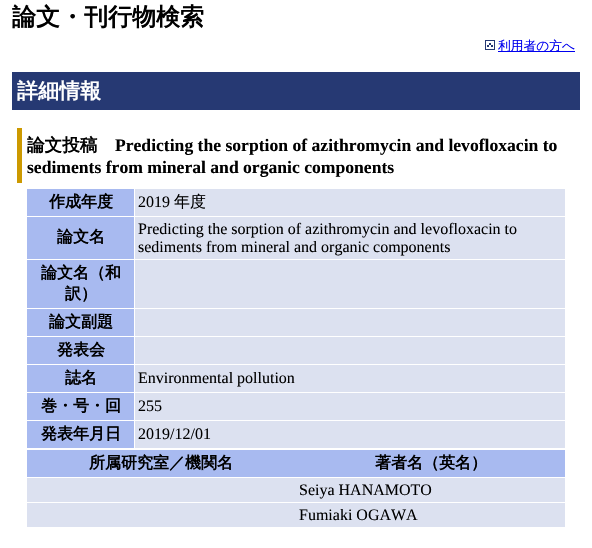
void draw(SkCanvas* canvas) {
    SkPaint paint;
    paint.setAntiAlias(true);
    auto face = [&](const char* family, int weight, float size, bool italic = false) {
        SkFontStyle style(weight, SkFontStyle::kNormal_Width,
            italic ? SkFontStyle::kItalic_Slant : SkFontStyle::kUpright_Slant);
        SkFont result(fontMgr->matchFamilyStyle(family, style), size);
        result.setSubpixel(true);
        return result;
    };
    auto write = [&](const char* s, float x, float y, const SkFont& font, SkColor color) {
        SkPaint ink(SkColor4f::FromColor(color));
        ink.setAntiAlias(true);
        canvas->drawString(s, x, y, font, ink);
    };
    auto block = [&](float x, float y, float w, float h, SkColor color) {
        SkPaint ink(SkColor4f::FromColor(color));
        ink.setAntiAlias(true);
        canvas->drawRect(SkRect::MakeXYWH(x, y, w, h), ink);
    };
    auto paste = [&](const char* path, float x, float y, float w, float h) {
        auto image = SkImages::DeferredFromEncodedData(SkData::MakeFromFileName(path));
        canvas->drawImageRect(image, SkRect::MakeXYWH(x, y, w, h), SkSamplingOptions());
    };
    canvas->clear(SK_ColorWHITE);
    auto kFont1 = face("WenQuanYi Zen Hei", 700, 24);
    write("論文・刊行物検索", 12, 25, kFont1, SK_ColorBLACK);
    paste("pic1.png", 485, 40, 10, 10);
    block(498, 51, 77, 1, SkColorSetRGB(0, 0, 238));
    auto kFont2 = face("WenQuanYi Zen Hei", 500, 12.75f);
    write("利用者の方へ", 498, 50, kFont2, SkColorSetRGB(0, 0, 238));
    block(12, 72, 568, 38, SkColorSetRGB(38, 57, 115));
    auto kFont3 = face("WenQuanYi Zen Hei", 700, 21);
    write("詳細情報", 17, 98, kFont3, SK_ColorWHITE);
    block(17, 128, 5, 55, SkColorSetRGB(204, 153, 0));
    auto kFont4 = face("WenQuanYi Zen Hei", 700, 17.6f);
    write("論文投稿", 27, 151, kFont4, SK_ColorBLACK);
    auto kFont5 = face("Liberation Serif", 700, 17.6f);
    write("Predicting the sorption of azithromycin and levofloxacin to", 115, 151, kFont5, SK_ColorBLACK);
    write("sediments from mineral and organic components", 27, 173, kFont5, SK_ColorBLACK);
    block(27, 189, 107, 27, SkColorSetRGB(168, 186, 240));
    auto kFont6 = face("WenQuanYi Zen Hei", 700, 16);
    write("作成年度", 49, 207, kFont6, SK_ColorBLACK);
    block(135, 189, 430, 27, SkColorSetRGB(220, 225, 240));
    auto kFont7 = face("Liberation Serif", 400, 16);
    write("2019", 138, 207, kFont7, SK_ColorBLACK);
    auto kFont8 = face("WenQuanYi Zen Hei", 500, 16);
    write("年度", 174, 207, kFont8, SK_ColorBLACK);
    block(27, 217, 107, 42, SkColorSetRGB(168, 186, 240));
    write("論文名", 57, 242, kFont6, SK_ColorBLACK);
    block(135, 217, 430, 42, SkColorSetRGB(220, 225, 240));
    write("Predicting the sorption of azithromycin and levofloxacin to", 138, 234, kFont7, SK_ColorBLACK);
    write("sediments from mineral and organic components", 138, 252, kFont7, SK_ColorBLACK);
    block(27, 260, 107, 48, SkColorSetRGB(168, 186, 240));
    write("論文名（和", 41, 278, kFont6, SK_ColorBLACK);
    write("訳）", 65, 299, kFont6, SK_ColorBLACK);
    block(135, 260, 430, 48, SkColorSetRGB(220, 225, 240));
    block(27, 309, 107, 27, SkColorSetRGB(168, 186, 240));
    write("論文副題", 49, 327, kFont6, SK_ColorBLACK);
    block(135, 309, 430, 27, SkColorSetRGB(220, 225, 240));
    block(27, 337, 107, 27, SkColorSetRGB(168, 186, 240));
    write("発表会", 57, 355, kFont6, SK_ColorBLACK);
    block(135, 337, 430, 27, SkColorSetRGB(220, 225, 240));
    block(27, 365, 107, 27, SkColorSetRGB(168, 186, 240));
    write("誌名", 65, 383, kFont6, SK_ColorBLACK);
    block(135, 365, 430, 27, SkColorSetRGB(220, 225, 240));
    write("Environmental pollution", 138, 383, kFont7, SK_ColorBLACK);
    block(27, 393, 107, 27, SkColorSetRGB(168, 186, 240));
    write("巻・号・回", 41, 411, kFont6, SK_ColorBLACK);
    block(135, 393, 430, 27, SkColorSetRGB(220, 225, 240));
    write("255", 138, 411, kFont7, SK_ColorBLACK);
    block(27, 421, 107, 27, SkColorSetRGB(168, 186, 240));
    write("発表年月日", 41, 439, kFont6, SK_ColorBLACK);
    block(135, 421, 430, 27, SkColorSetRGB(220, 225, 240));
    write("2019/12/01", 138, 439, kFont7, SK_ColorBLACK);
    block(27, 450, 538, 27, SkColorSetRGB(168, 186, 240));
    write("所属研究室／機関名", 89, 468, kFont6, SK_ColorBLACK);
    write("著者名（英名）", 375, 468, kFont6, SK_ColorBLACK);
    block(27, 478, 538, 24, SkColorSetRGB(220, 225, 240));
    write("Seiya HANAMOTO", 299, 495, kFont7, SK_ColorBLACK);
    block(27, 503, 538, 24, SkColorSetRGB(220, 225, 240));
    write("Fumiaki OGAWA", 299, 520, kFont7, SK_ColorBLACK);
}
